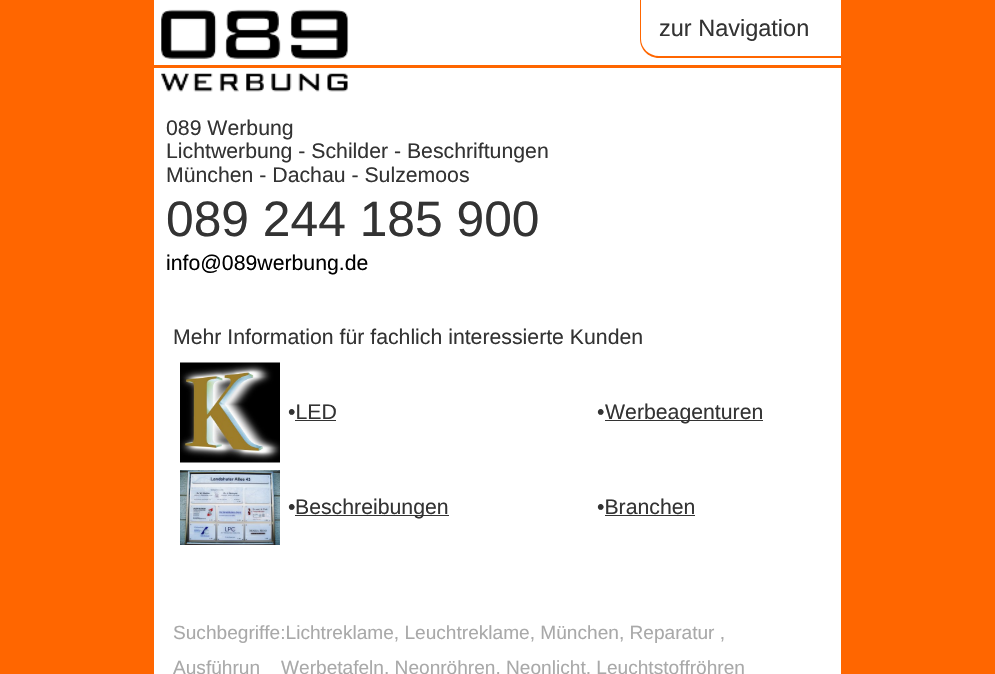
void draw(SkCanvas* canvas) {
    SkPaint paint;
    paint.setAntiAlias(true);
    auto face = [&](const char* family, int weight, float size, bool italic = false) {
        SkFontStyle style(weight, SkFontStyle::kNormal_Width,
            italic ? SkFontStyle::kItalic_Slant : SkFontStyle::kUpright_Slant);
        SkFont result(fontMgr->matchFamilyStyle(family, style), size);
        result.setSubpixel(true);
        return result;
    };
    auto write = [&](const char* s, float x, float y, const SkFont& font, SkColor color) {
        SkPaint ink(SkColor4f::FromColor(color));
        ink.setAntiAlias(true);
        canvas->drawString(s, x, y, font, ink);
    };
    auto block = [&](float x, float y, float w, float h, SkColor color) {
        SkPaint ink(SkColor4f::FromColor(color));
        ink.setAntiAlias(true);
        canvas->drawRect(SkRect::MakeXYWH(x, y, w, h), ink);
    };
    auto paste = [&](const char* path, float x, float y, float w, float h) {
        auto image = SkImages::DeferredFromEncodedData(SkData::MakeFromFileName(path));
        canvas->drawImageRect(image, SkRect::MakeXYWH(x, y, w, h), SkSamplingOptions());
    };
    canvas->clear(SkColorSetRGB(255, 102, 0));
    block(154, 0, 687, 674, SK_ColorWHITE);
    block(154, 65, 687, 3, SkColorSetRGB(255, 102, 0));
    paste("pic1.png", 161, 9, 188, 83);
    paint.setColor(SkColorSetRGB(255, 102, 0));
    canvas->drawPath(SkPathBuilder(SkPathFillType::kEvenOdd).moveTo(640, 0).lineTo(841, 0).lineTo(841, 58).lineTo(659, 58).cubicTo(648, 58, 640, 49, 640, 39).close().moveTo(641, 0).lineTo(841, 0).lineTo(841, 56).lineTo(659, 56).cubicTo(649, 56, 641, 48, 641, 39).close().detach(), paint);
    auto kFont1 = face("Liberation Sans", 400, 23.5f);
    write("zur Navigation", 659, 36, kFont1, SkColorSetRGB(51, 51, 51));
    auto kFont2 = face("Liberation Sans", 400, 21.25f);
    write("089 Werbung", 166, 135, kFont2, SkColorSetRGB(51, 51, 51));
    write("Lichtwerbung - Schilder - Beschriftungen", 166, 158, kFont2, SkColorSetRGB(51, 51, 51));
    write("München - Dachau - Sulzemoos", 166, 182, kFont2, SkColorSetRGB(51, 51, 51));
    auto kFont3 = face("Liberation Sans", 400, 49.75f);
    write("089 244 185 900", 166, 236, kFont3, SkColorSetRGB(51, 51, 51));
    write("info@089werbung.de", 166, 270, kFont2, SK_ColorBLACK);
    write("Mehr Information für fachlich interessierte Kunden", 173, 344, kFont2, SkColorSetRGB(51, 51, 51));
    paste("pic2.png", 180, 362, 100, 101);
    write("•LED", 288, 419, kFont2, SkColorSetRGB(51, 51, 51));
    block(295, 420, 41, 1, SkColorSetRGB(51, 51, 51));
    write("•", 597, 419, kFont2, SkColorSetRGB(51, 51, 51));
    block(605, 420, 158, 1, SkColorSetRGB(51, 51, 51));
    write("Werbeagenturen", 605, 419, kFont2, SkColorSetRGB(51, 51, 51));
    paste("pic3.png", 180, 470, 100, 75);
    write("•", 288, 514, kFont2, SkColorSetRGB(51, 51, 51));
    block(295, 515, 154, 1, SkColorSetRGB(51, 51, 51));
    write("Beschreibungen", 295, 514, kFont2, SkColorSetRGB(51, 51, 51));
    write("•Branchen", 597, 514, kFont2, SkColorSetRGB(51, 51, 51));
    block(605, 515, 90, 1, SkColorSetRGB(51, 51, 51));
    auto kFont4 = face("Liberation Sans", 400, 19.1f);
    write("Suchbegriffe:Lichtreklame, Leuchtreklame, München, Reparatur ,", 173, 639, kFont4, SkColorSetRGB(169, 169, 169));
    write("Ausführun", 173, 674, kFont4, SkColorSetRGB(169, 169, 169));
    write("Werbetafeln, Neonröhren, Neonlicht, Leuchtstoffröhren", 281, 674, kFont4, SkColorSetRGB(169, 169, 169));
}
